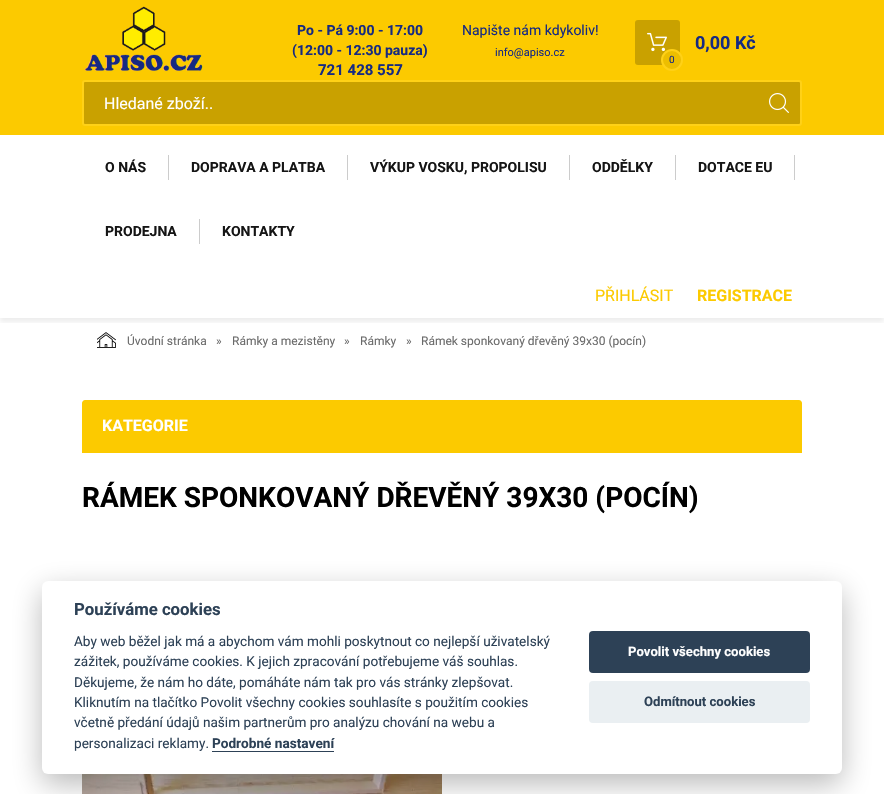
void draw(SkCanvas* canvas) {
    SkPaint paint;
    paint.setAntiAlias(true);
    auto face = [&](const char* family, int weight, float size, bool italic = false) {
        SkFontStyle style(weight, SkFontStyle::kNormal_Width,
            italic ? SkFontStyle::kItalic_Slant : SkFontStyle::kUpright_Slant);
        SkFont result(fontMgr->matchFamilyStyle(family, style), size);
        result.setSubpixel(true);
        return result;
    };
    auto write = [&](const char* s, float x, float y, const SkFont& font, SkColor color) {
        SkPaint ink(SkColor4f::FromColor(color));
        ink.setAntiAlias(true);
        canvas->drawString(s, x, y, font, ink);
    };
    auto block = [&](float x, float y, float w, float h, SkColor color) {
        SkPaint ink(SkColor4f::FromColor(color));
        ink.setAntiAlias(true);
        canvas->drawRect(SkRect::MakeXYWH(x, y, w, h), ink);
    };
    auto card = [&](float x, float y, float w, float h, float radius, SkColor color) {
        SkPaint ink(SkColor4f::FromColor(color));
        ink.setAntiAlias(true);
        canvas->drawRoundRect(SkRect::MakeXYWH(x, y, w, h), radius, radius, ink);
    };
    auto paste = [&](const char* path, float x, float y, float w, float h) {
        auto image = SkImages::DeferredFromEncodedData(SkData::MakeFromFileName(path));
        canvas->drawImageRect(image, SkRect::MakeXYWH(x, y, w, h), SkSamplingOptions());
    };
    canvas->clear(SK_ColorWHITE);
    block(0, 0, 884, 135, SkColorSetRGB(252, 202, 0));
    paste("pic1.png", 84, 6, 119, 65);
    auto kFont1 = face("Roboto", 700, 14);
    write("Po - Pá 9:00 - 17:00", 297, 35, kFont1, SkColorSetRGB(22, 42, 130));
    write("(12:00 - 12:30 pauza)", 292, 55, kFont1, SkColorSetRGB(22, 42, 130));
    auto kFont2 = face("Roboto", 700, 15);
    write("721 428 557", 318, 75, kFont2, SkColorSetRGB(22, 42, 130));
    auto kFont3 = face("Roboto", 400, 14);
    write("Napište nám kdykoliv!", 462, 35, kFont3, SkColorSetRGB(22, 42, 130));
    auto kFont4 = face("Roboto", 400, 11);
    write("info@apiso.cz", 495, 56, kFont4, SkColorSetRGB(22, 42, 130));
    auto kFont5 = face("Roboto", 700, 18);
    write("0,00 Kč", 695, 49, kFont5, SkColorSetRGB(22, 42, 130));
    card(635, 20, 45, 45, 3, SkColorSetRGB(201, 161, 0));
    paste("pic2.png", 647, 32, 20, 20);
    paint.setColor(SkColorSetRGB(237, 190, 0));
    canvas->drawCircle(672, 60, 10, paint);
    paint.setStyle(SkPaint::kStroke_Style);
    paint.setStrokeWidth(2);
    paint.setColor(SkColorSetRGB(255, 209, 23));
    canvas->drawCircle(672, 60, 10, paint);
    auto kFont6 = face("Roboto", 400, 10);
    write("0", 669, 63, kFont6, SkColorSetRGB(22, 42, 130));
    paint.setStyle(SkPaint::kFill_Style);
    paint.setColor(SkColorSetRGB(201, 161, 0));
    canvas->drawRoundRect(SkRect::MakeXYWH(83, 81, 718, 44), 2, 2, paint);
    paint.setStyle(SkPaint::kStroke_Style);
    paint.setColor(SkColorSetRGB(255, 209, 23));
    canvas->drawRoundRect(SkRect::MakeXYWH(83, 81, 718, 44), 2, 2, paint);
    auto kFont7 = face("Roboto", 400, 16);
    write("Hledané zboží..", 104, 109, kFont7, SK_ColorWHITE);
    paste("pic3.png", 769, 93, 20, 20);
    canvas->save();
    canvas->clipRect(SkRect::MakeXYWH(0, 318, 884, 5));
    paint.setStyle(SkPaint::kFill_Style);
    paint.setColor(SkColorSetARGB(18, 0, 0, 0));
    paint.setMaskFilter(SkMaskFilter::MakeBlur(kNormal_SkBlurStyle, 2.5f));
    canvas->drawRect(SkRect::MakeXYWH(0, 139, 884, 183), paint);
    paint.setMaskFilter(nullptr);
    canvas->restore();
    write("O NÁS", 105, 172, kFont1, SkColorSetRGB(21, 21, 21));
    block(168, 155, 1, 25, SkColorSetRGB(204, 204, 204));
    write("DOPRAVA A PLATBA", 191, 172, kFont1, SkColorSetRGB(21, 21, 21));
    block(347, 155, 1, 25, SkColorSetRGB(204, 204, 204));
    write("VÝKUP VOSKU, PROPOLISU", 370, 172, kFont1, SkColorSetRGB(21, 21, 21));
    block(569, 155, 1, 25, SkColorSetRGB(204, 204, 204));
    write("ODDĚLKY", 592, 172, kFont1, SkColorSetRGB(21, 21, 21));
    block(675, 155, 1, 25, SkColorSetRGB(204, 204, 204));
    write("DOTACE EU", 698, 172, kFont1, SkColorSetRGB(21, 21, 21));
    block(794, 155, 1, 25, SkColorSetRGB(204, 204, 204));
    write("PRODEJNA", 105, 236, kFont1, SkColorSetRGB(21, 21, 21));
    block(199, 219, 1, 25, SkColorSetRGB(204, 204, 204));
    write("KONTAKTY", 222, 236, kFont1, SkColorSetRGB(21, 21, 21));
    write("PŘIHLÁSIT", 595, 301, kFont7, SkColorSetRGB(252, 202, 0));
    auto kFont8 = face("Roboto", 700, 16);
    write("REGISTRACE", 697, 301, kFont8, SkColorSetRGB(252, 202, 0));
    paste("pic4.png", 97, 332, 19, 16);
    auto kFont9 = face("Roboto", 400, 12);
    write("Úvodní stránka", 127, 345, kFont9, SkColorSetRGB(107, 107, 107));
    write("»", 216, 345, kFont9, SkColorSetRGB(107, 107, 107));
    write("Rámky a mezistěny", 232, 345, kFont9, SkColorSetRGB(107, 107, 107));
    write("»", 344, 345, kFont9, SkColorSetRGB(107, 107, 107));
    write("Rámky", 360, 345, kFont9, SkColorSetRGB(107, 107, 107));
    write("»", 406, 345, kFont9, SkColorSetRGB(107, 107, 107));
    write("Rámek sponkovaný dřevěný 39x30 (pocín)", 421, 345, kFont9, SkColorSetRGB(107, 107, 107));
    paint.setColor(SkColorSetRGB(252, 202, 0));
    canvas->drawPath(SkPathBuilder().moveTo(85, 400).lineTo(799, 400).cubicTo(800.5f, 400, 802, 401.5f, 802, 403).lineTo(802, 453).lineTo(82, 453).lineTo(82, 403).cubicTo(82, 401.5f, 83.5f, 400, 85, 400).close().detach(), paint);
    write("KATEGORIE", 102, 431, kFont8, SK_ColorWHITE);
    auto kFont10 = face("Roboto", 700, 28);
    write("RÁMEK SPONKOVANÝ DŘEVĚNÝ 39X30 (POCÍN)", 82, 507, kFont10, SK_ColorBLACK);
    paste("pic5.png", 82, 774, 360, 20);
    paint.setColor(SkColorSetARGB(71, 2, 2, 3));
    paint.setMaskFilter(SkMaskFilter::MakeBlur(kNormal_SkBlurStyle, 15));
    canvas->drawRoundRect(SkRect::MakeXYWH(42, 591, 800, 193), 6, 6, paint);
    paint.setMaskFilter(nullptr);
    card(42, 581, 800, 193, 6, SK_ColorWHITE);
    auto kFont11 = face("Roboto", 700, 16.75f);
    write("Používáme cookies", 74, 615, kFont11, SkColorSetRGB(45, 65, 86));
    auto kFont12 = face("Roboto", 400, 13.6f);
    write("Aby web běžel jak má a abychom vám mohli poskytnout co nejlepší uživatelský", 74, 646, kFont12, SkColorSetRGB(45, 65, 86));
    write("zážitek, používáme cookies. K jejich zpracování potřebujeme váš souhlas.", 74, 666, kFont12, SkColorSetRGB(45, 65, 86));
    write("Děkujeme, že nám ho dáte, pomáháte nám tak pro vás stránky zlepšovat.", 74, 687, kFont12, SkColorSetRGB(45, 65, 86));
    write("Kliknutím na tlačítko Povolit všechny cookies souhlasíte s použitím cookies", 74, 707, kFont12, SkColorSetRGB(45, 65, 86));
    write("včetně předání údajů našim partnerům pro analýzu chování na webu a", 74, 727, kFont12, SkColorSetRGB(45, 65, 86));
    write("personalizaci reklamy.", 74, 748, kFont12, SkColorSetRGB(45, 65, 86));
    auto kFont13 = face("Roboto", 700, 13.6f);
    write("Podrobné nastavení", 212, 748, kFont13, SkColorSetRGB(45, 65, 86));
    block(212, 751, 122, 1, SkColorSetRGB(45, 65, 86));
    card(589, 631, 221, 42, 4, SkColorSetRGB(45, 65, 86));
    auto kFont14 = face("Roboto", 700, 13.1f);
    write("Povolit všechny cookies", 628, 656, kFont14, SK_ColorWHITE);
    card(589, 681, 221, 42, 4, SkColorSetRGB(234, 239, 242));
    write("Odmítnout cookies", 644, 706, kFont14, SkColorSetRGB(45, 65, 86));
}
